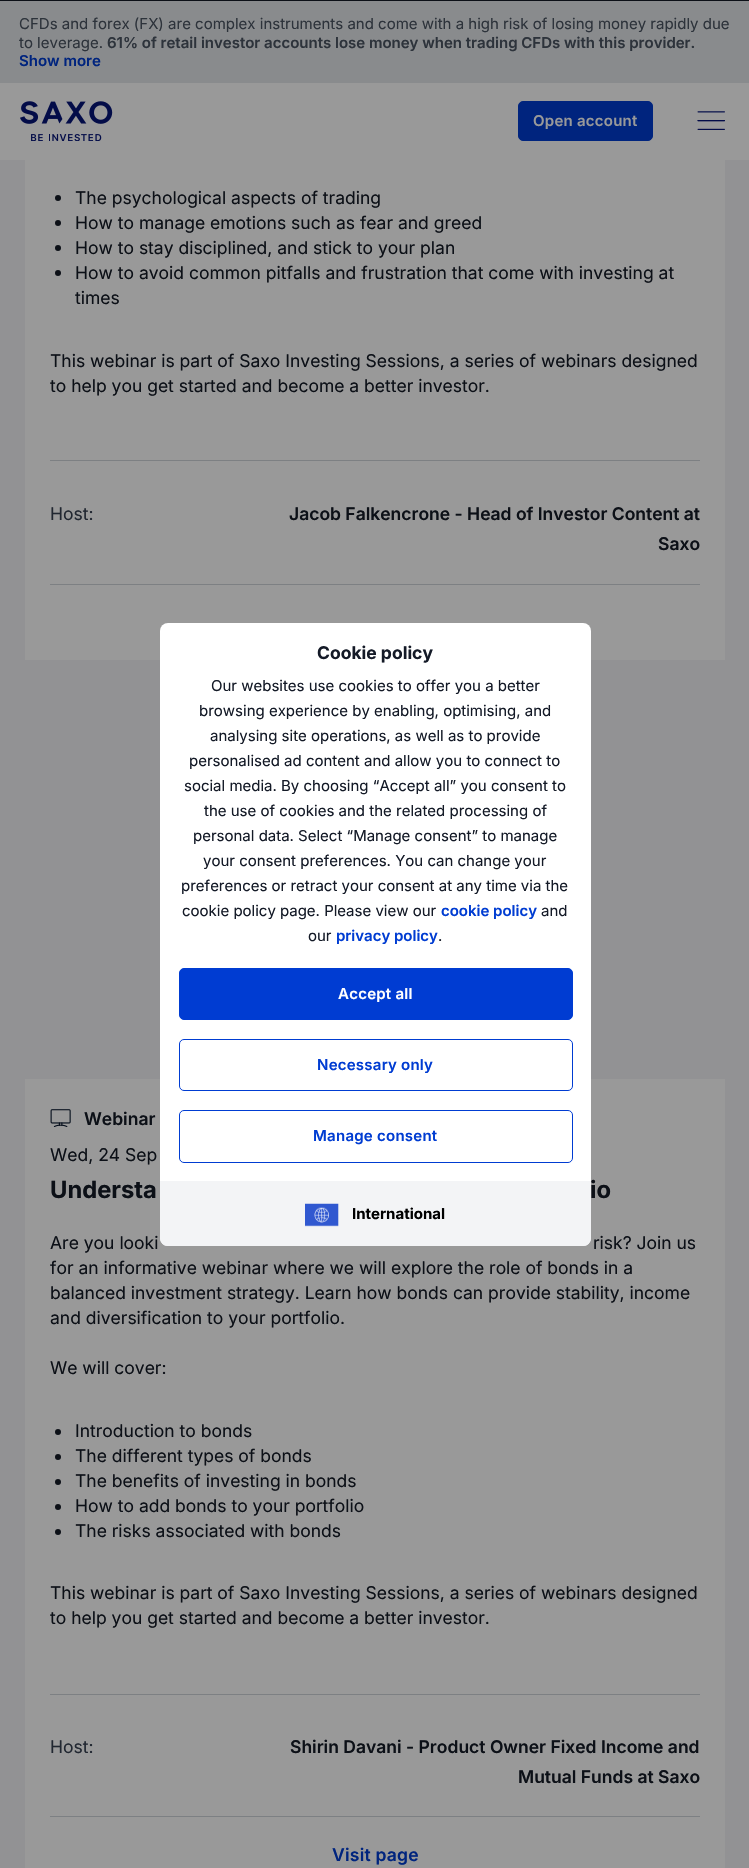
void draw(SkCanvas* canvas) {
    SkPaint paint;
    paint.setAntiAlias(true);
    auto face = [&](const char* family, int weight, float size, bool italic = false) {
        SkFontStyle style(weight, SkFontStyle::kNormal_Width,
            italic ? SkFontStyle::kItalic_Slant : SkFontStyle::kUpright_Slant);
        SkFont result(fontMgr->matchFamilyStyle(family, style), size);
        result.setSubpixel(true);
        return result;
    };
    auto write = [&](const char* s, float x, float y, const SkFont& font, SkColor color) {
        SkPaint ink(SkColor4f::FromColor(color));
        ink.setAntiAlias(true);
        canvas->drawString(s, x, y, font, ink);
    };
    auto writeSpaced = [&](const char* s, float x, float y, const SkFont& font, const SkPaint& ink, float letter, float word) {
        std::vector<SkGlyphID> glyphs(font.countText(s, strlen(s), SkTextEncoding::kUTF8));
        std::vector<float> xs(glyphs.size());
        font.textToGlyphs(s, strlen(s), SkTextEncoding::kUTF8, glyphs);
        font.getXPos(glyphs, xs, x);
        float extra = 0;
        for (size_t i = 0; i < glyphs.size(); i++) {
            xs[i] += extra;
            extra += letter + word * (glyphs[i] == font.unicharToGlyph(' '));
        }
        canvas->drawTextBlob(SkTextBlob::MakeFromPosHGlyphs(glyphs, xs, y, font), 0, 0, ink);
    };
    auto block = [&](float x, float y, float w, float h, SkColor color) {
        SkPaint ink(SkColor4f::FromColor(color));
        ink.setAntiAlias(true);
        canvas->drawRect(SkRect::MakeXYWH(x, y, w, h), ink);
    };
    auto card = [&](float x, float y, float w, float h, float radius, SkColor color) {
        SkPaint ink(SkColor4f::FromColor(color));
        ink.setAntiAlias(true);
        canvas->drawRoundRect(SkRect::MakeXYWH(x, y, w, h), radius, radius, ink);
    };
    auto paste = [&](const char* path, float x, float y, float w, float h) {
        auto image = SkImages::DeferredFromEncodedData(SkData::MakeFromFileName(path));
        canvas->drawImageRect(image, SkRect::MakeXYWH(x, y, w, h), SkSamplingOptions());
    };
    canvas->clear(SkColorSetRGB(146, 146, 148));
    block(0, 1, 749, 82, SkColorSetRGB(137, 139, 141));
    block(0, 0, 749, 1, SkColorSetRGB(12, 16, 23));
    auto kFont1 = face("Inter", 400, 15);
    write("CFDs and forex (FX) are complex instruments and come with a high risk of losing money rapidly due", 19, 29, kFont1, SkColorSetRGB(45, 51, 59));
    write("to leverage.", 19, 48, kFont1, SkColorSetRGB(45, 51, 59));
    auto kFont2 = face("Inter", 600, 15);
    write("61% of retail investor accounts lose money when trading CFDs with this provider.", 107, 48, kFont2, SkColorSetRGB(45, 51, 59));
    write("Show more", 19, 66, kFont2, SkColorSetRGB(0, 36, 126));
    block(0, 83, 749, 77, SkColorSetRGB(153, 153, 153));
    paste("pic1.png", 20, 101, 93, 40);
    paint.setColor(SkColorSetRGB(0, 36, 126));
    canvas->drawRoundRect(SkRect::MakeXYWH(518.5f, 101.5f, 134, 39), 4.5f, 4.5f, paint);
    paint.setStyle(SkPaint::kStroke_Style);
    paint.setStrokeWidth(1);
    canvas->drawRoundRect(SkRect::MakeXYWH(518.5f, 101.5f, 134, 39), 4.5f, 4.5f, paint);
    paint.setStyle(SkPaint::kFill_Style);
    paint.setColor(SkColorSetRGB(153, 153, 153));
    writeSpaced("Open account", 533, 126, kFont2, paint, 0.25f, 0);
    paste("pic2.png", 697, 111, 28, 19);
    block(25, 160, 700, 500, SkColorSetRGB(153, 153, 153));
    block(25, 1079, 700, 789, SkColorSetRGB(153, 153, 153));
    card(160, 623, 431, 623, 8, SK_ColorWHITE);
    auto kFont3 = face("Inter", 700, 17.5f);
    write("Cookie policy", 317, 659, kFont3, SkColorSetRGB(20, 26, 39));
    write("Our websites use cookies to offer you a better", 211, 691, kFont1, SkColorSetRGB(20, 26, 39));
    write("browsing experience by enabling, optimising, and", 199, 716, kFont1, SkColorSetRGB(20, 26, 39));
    write("analysing site operations, as well as to provide", 210, 741, kFont1, SkColorSetRGB(20, 26, 39));
    write("personalised ad content and allow you to connect to", 189, 766, kFont1, SkColorSetRGB(20, 26, 39));
    write("social media. By choosing “Accept all” you consent to", 184, 791, kFont1, SkColorSetRGB(20, 26, 39));
    write("the use of cookies and the related processing of", 204, 816, kFont1, SkColorSetRGB(20, 26, 39));
    write("personal data. Select “Manage consent” to manage", 193, 841, kFont1, SkColorSetRGB(20, 26, 39));
    write("your consent preferences. You can change your", 203, 866, kFont1, SkColorSetRGB(20, 26, 39));
    write("preferences or retract your consent at any time via the", 181, 891, kFont1, SkColorSetRGB(20, 26, 39));
    write("cookie policy page. Please view our", 182, 916, kFont1, SkColorSetRGB(20, 26, 39));
    write("cookie policy", 441, 916, kFont2, SkColorSetRGB(0, 60, 210));
    write("and", 541, 916, kFont1, SkColorSetRGB(20, 26, 39));
    write("our", 308, 941, kFont1, SkColorSetRGB(20, 26, 39));
    write("privacy policy", 336, 941, kFont2, SkColorSetRGB(0, 60, 210));
    write(".", 438, 941, kFont1, SkColorSetRGB(20, 26, 39));
    paint.setColor(SkColorSetRGB(0, 60, 210));
    canvas->drawRoundRect(SkRect::MakeXYWH(179.5f, 968.5f, 393, 51), 4.5f, 4.5f, paint);
    paint.setStyle(SkPaint::kStroke_Style);
    canvas->drawRoundRect(SkRect::MakeXYWH(179.5f, 968.5f, 393, 51), 4.5f, 4.5f, paint);
    paint.setStyle(SkPaint::kFill_Style);
    paint.setColor(SK_ColorWHITE);
    writeSpaced("Accept all", 338, 999, kFont2, paint, 0.25f, 0);
    paint.setStyle(SkPaint::kStroke_Style);
    paint.setColor(SkColorSetRGB(0, 60, 210));
    canvas->drawRoundRect(SkRect::MakeXYWH(179.5f, 1039.5f, 393, 51), 4.5f, 4.5f, paint);
    paint.setStyle(SkPaint::kFill_Style);
    writeSpaced("Necessary only", 317, 1070, kFont2, paint, 0.25f, 0);
    paint.setStyle(SkPaint::kStroke_Style);
    canvas->drawRoundRect(SkRect::MakeXYWH(179.5f, 1110.5f, 393, 52), 4.5f, 4.5f, paint);
    paint.setStyle(SkPaint::kFill_Style);
    writeSpaced("Manage consent", 313, 1141, kFont2, paint, 0.25f, 0);
    paint.setColor(SkColorSetRGB(243, 244, 246));
    canvas->drawPath(SkPathBuilder().moveTo(160, 1181).lineTo(591, 1181).lineTo(591, 1238).cubicTo(591, 1242.5f, 587.5f, 1246, 583, 1246).lineTo(168, 1246).cubicTo(163.5f, 1246, 160, 1242.5f, 160, 1238).close().detach(), paint);
    paste("pic3.png", 305, 1203, 34, 24);
    auto kFont4 = face("Inter", 700, 15);
    write("International", 352, 1219, kFont4, SK_ColorBLACK);
    paint.setColor(SkColorSetRGB(12, 16, 23));
    canvas->drawCircle(58, 198, 3, paint);
    auto kFont5 = face("Inter", 400, 17.5f);
    write("The psychological aspects of trading", 75, 204, kFont5, SkColorSetRGB(12, 16, 23));
    canvas->drawCircle(58, 223, 3, paint);
    write("How to manage emotions such as fear and greed", 75, 229, kFont5, SkColorSetRGB(12, 16, 23));
    canvas->drawCircle(58, 248, 3, paint);
    write("How to stay disciplined, and stick to your plan", 75, 254, kFont5, SkColorSetRGB(12, 16, 23));
    canvas->drawCircle(58, 273, 3, paint);
    write("How to avoid common pitfalls and frustration that come with investing at", 75, 279, kFont5, SkColorSetRGB(12, 16, 23));
    write("times", 75, 304, kFont5, SkColorSetRGB(12, 16, 23));
    write("This webinar is part of Saxo Investing Sessions, a series of webinars designed", 50, 367, kFont5, SkColorSetRGB(12, 16, 23));
    write("to help you get started and become a better investor.", 50, 392, kFont5, SkColorSetRGB(12, 16, 23));
    block(50, 460, 650, 1, SkColorSetRGB(125, 128, 131));
    write("Host:", 50, 520, kFont5, SkColorSetRGB(33, 39, 49));
    auto kFont6 = face("Inter", 600, 17.5f);
    write("Jacob Falkencrone - Head of Investor Content at", 289, 520, kFont6, SkColorSetRGB(12, 16, 23));
    write("Saxo", 658, 550, kFont6, SkColorSetRGB(12, 16, 23));
    block(50, 584, 650, 1, SkColorSetRGB(125, 128, 131));
    paste("pic4.png", 50, 1109, 21, 18);
    write("Webinar", 84, 1125, kFont6, SkColorSetRGB(12, 16, 23));
    write("Wed, 24 Sep", 50, 1161, kFont5, SkColorSetRGB(12, 16, 23));
    auto kFont7 = face("Inter", 700, 23.75f);
    write("Understa", 50, 1198, kFont7, SkColorSetRGB(12, 16, 23));
    write("io", 590, 1198, kFont7, SkColorSetRGB(12, 16, 23));
    write("Are you looki", 50, 1249, kFont5, SkColorSetRGB(12, 16, 23));
    write("risk? Join us", 593, 1249, kFont5, SkColorSetRGB(12, 16, 23));
    write("for an informative webinar where we will explore the role of bonds in a", 50, 1274, kFont5, SkColorSetRGB(12, 16, 23));
    write("balanced investment strategy. Learn how bonds can provide stability, income", 50, 1299, kFont5, SkColorSetRGB(12, 16, 23));
    write("and diversification to your portfolio.", 50, 1324, kFont5, SkColorSetRGB(12, 16, 23));
    write("We will cover:", 50, 1374, kFont5, SkColorSetRGB(12, 16, 23));
    canvas->drawCircle(58, 1432, 3, paint);
    write("Introduction to bonds", 75, 1437, kFont5, SkColorSetRGB(12, 16, 23));
    canvas->drawCircle(58, 1457, 3, paint);
    write("The different types of bonds", 75, 1462, kFont5, SkColorSetRGB(12, 16, 23));
    canvas->drawCircle(58, 1482, 3, paint);
    write("The benefits of investing in bonds", 75, 1487, kFont5, SkColorSetRGB(12, 16, 23));
    canvas->drawCircle(58, 1507, 3, paint);
    write("How to add bonds to your portfolio", 75, 1512, kFont5, SkColorSetRGB(12, 16, 23));
    canvas->drawCircle(58, 1532, 3, paint);
    write("The risks associated with bonds", 75, 1537, kFont5, SkColorSetRGB(12, 16, 23));
    write("This webinar is part of Saxo Investing Sessions, a series of webinars designed", 50, 1599, kFont5, SkColorSetRGB(12, 16, 23));
    write("to help you get started and become a better investor.", 50, 1624, kFont5, SkColorSetRGB(12, 16, 23));
    block(50, 1694, 650, 1, SkColorSetRGB(125, 128, 131));
    write("Host:", 50, 1753, kFont5, SkColorSetRGB(33, 39, 49));
    write("Shirin Davani - Product Owner Fixed Income and", 290, 1753, kFont6, SkColorSetRGB(12, 16, 23));
    write("Mutual Funds at Saxo", 518, 1783, kFont6, SkColorSetRGB(12, 16, 23));
    block(50, 1816, 650, 1, SkColorSetRGB(125, 128, 131));
    paint.setColor(SkColorSetRGB(0, 36, 126));
    writeSpaced("Visit page", 332, 1861, kFont6, paint, 0.25f, 0);
}
